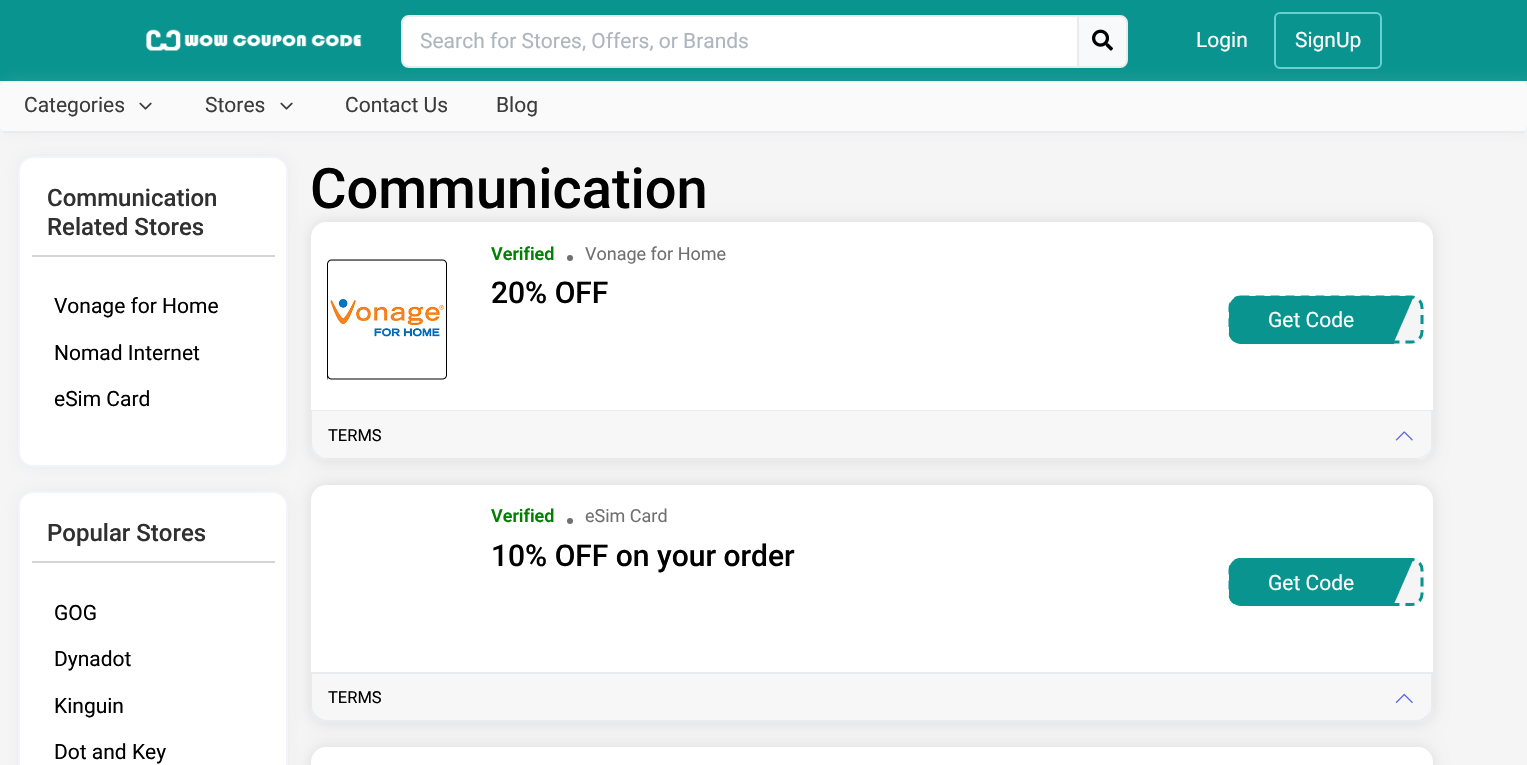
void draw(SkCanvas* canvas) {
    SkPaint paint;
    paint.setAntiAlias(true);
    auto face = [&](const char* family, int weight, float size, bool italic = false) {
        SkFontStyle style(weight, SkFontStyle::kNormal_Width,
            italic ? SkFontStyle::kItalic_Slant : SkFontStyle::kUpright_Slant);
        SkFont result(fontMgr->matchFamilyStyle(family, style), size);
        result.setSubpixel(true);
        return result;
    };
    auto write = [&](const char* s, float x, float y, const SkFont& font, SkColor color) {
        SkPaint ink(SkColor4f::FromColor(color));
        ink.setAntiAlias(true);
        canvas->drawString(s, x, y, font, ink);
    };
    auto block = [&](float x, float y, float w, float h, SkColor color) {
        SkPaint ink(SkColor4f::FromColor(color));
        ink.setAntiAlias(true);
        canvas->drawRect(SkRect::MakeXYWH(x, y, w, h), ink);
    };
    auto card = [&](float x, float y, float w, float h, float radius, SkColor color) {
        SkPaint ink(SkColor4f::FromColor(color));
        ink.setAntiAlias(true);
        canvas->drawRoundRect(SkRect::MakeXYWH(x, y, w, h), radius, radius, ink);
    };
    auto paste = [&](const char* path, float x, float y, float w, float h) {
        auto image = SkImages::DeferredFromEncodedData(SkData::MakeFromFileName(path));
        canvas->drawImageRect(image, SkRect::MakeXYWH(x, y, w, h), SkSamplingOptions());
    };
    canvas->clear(SkColorSetRGB(245, 245, 245));
    block(0, 0, 1527, 81, SkColorSetRGB(9, 148, 143));
    paste("pic1.png", 146, 29, 216, 22);
    paint.setColor(SkColorSetRGB(248, 249, 250));
    canvas->drawPath(SkPathBuilder().moveTo(1078, 16).lineTo(1120, 16).cubicTo(1124, 16, 1127, 19, 1127, 23).lineTo(1127, 60).cubicTo(1127, 64, 1124, 67, 1120, 67).lineTo(1078, 67).close().detach(), paint);
    paint.setStyle(SkPaint::kStroke_Style);
    paint.setStrokeWidth(2);
    paint.setColor(SkColorSetRGB(233, 236, 239));
    canvas->drawPath(SkPathBuilder().moveTo(1078, 16).lineTo(1120, 16).cubicTo(1124, 16, 1127, 19, 1127, 23).lineTo(1127, 60).cubicTo(1127, 64, 1124, 67, 1120, 67).lineTo(1078, 67).close().detach(), paint);
    paint.setStyle(SkPaint::kFill_Style);
    paint.setColor(SK_ColorWHITE);
    canvas->drawPath(SkPathBuilder().moveTo(409, 16).lineTo(1078, 16).lineTo(1078, 67).lineTo(409, 67).cubicTo(405, 67, 402, 64, 402, 60).lineTo(402, 23).cubicTo(402, 19, 405, 16, 409, 16).close().detach(), paint);
    paint.setStyle(SkPaint::kStroke_Style);
    paint.setColor(SkColorSetRGB(233, 236, 239));
    canvas->drawPath(SkPathBuilder().moveTo(409, 16).lineTo(1078, 16).lineTo(1078, 67).lineTo(409, 67).cubicTo(405, 67, 402, 64, 402, 60).lineTo(402, 23).cubicTo(402, 19, 405, 16, 409, 16).close().detach(), paint);
    auto kFont1 = face("Roboto", 400, 21);
    write("Search for Stores, Offers, or Brands", 420, 48, kFont1, SkColorSetRGB(173, 181, 189));
    paste("pic2.png", 1092, 29, 21, 22);
    write("Login", 1196, 47, kFont1, SK_ColorWHITE);
    paint.setColor(SkColorSetRGB(102, 209, 209));
    canvas->drawRoundRect(SkRect::MakeXYWH(1275, 13, 106, 55), 5, 5, paint);
    write("SignUp", 1295, 47, kFont1, SK_ColorWHITE);
    paint.setStyle(SkPaint::kFill_Style);
    paint.setColor(SkColorSetARGB(51, 183, 192, 206));
    paint.setMaskFilter(SkMaskFilter::MakeBlur(kNormal_SkBlurStyle, 7.5f));
    canvas->drawRoundRect(SkRect::MakeXYWH(5, 81, 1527, 51), 6, 6, paint);
    paint.setMaskFilter(nullptr);
    card(0, 81, 1527, 51, 6, SkColorSetRGB(250, 250, 250));
    paint.setMaskFilter(SkMaskFilter::MakeBlur(kNormal_SkBlurStyle, 7.5f));
    canvas->drawRoundRect(SkRect::MakeXYWH(18, 156, 270, 311), 15, 15, paint);
    paint.setMaskFilter(nullptr);
    block(3, 131, 1521, 2, SkColorSetRGB(233, 236, 239));
    write("Categories", 24, 112, kFont1, SkColorSetRGB(60, 60, 60));
    paste("pic3.png", 139, 102, 13, 8);
    write("Stores", 205, 112, kFont1, SkColorSetRGB(60, 60, 60));
    paste("pic3.png", 280, 102, 13, 8);
    write("Contact Us", 345, 112, kFont1, SkColorSetRGB(60, 60, 60));
    write("Blog", 496, 112, kFont1, SkColorSetRGB(60, 60, 60));
    paint.setColor(SK_ColorWHITE);
    canvas->drawRoundRect(SkRect::MakeXYWH(19, 157, 268, 309), 14, 14, paint);
    paint.setStyle(SkPaint::kStroke_Style);
    paint.setColor(SkColorSetRGB(242, 244, 249));
    canvas->drawRoundRect(SkRect::MakeXYWH(19, 157, 268, 309), 14, 14, paint);
    auto kFont2 = face("Roboto", 500, 24);
    write("Communication", 47, 206, kFont2, SkColorSetRGB(48, 48, 48));
    write("Related Stores", 47, 235, kFont2, SkColorSetRGB(48, 48, 48));
    block(32, 255, 243, 2, SkColorSetRGB(213, 213, 213));
    write("Vonage for Home", 54, 313, kFont1, SK_ColorBLACK);
    write("Nomad Internet", 54, 360, kFont1, SK_ColorBLACK);
    write("eSim Card", 54, 406, kFont1, SK_ColorBLACK);
    paint.setStyle(SkPaint::kFill_Style);
    paint.setColor(SkColorSetARGB(51, 183, 192, 206));
    paint.setMaskFilter(SkMaskFilter::MakeBlur(kNormal_SkBlurStyle, 7.5f));
    canvas->drawRoundRect(SkRect::MakeXYWH(18, 491, 270, 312), 15, 15, paint);
    paint.setMaskFilter(nullptr);
    paint.setColor(SK_ColorWHITE);
    canvas->drawRoundRect(SkRect::MakeXYWH(19, 492, 268, 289), 14, 14, paint);
    paint.setStyle(SkPaint::kStroke_Style);
    paint.setColor(SkColorSetRGB(242, 244, 249));
    canvas->drawRoundRect(SkRect::MakeXYWH(19, 492, 268, 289), 14, 14, paint);
    write("Popular Stores", 47, 541, kFont2, SkColorSetRGB(48, 48, 48));
    block(32, 561, 243, 2, SkColorSetRGB(213, 213, 213));
    write("GOG", 54, 620, kFont1, SK_ColorBLACK);
    write("Dynadot", 54, 666, kFont1, SK_ColorBLACK);
    write("Kinguin", 54, 713, kFont1, SK_ColorBLACK);
    write("Dot and Key", 54, 759, kFont1, SK_ColorBLACK);
    auto kFont3 = face("Roboto", 500, 56);
    write("Communication", 310, 208, kFont3, SK_ColorBLACK);
    paint.setStyle(SkPaint::kFill_Style);
    paint.setColor(SkColorSetARGB(26, 0, 0, 0));
    paint.setMaskFilter(SkMaskFilter::MakeBlur(kNormal_SkBlurStyle, 7.5f));
    canvas->drawRoundRect(SkRect::MakeXYWH(311, 222, 1122, 239), 15, 15, paint);
    paint.setMaskFilter(nullptr);
    card(311, 222, 1122, 239, 15, SK_ColorWHITE);
    paste("pic4.png", 327, 259, 120, 121);
    auto kFont4 = face("Roboto", 600, 18);
    write("Verified", 491, 260, kFont4, SkColorSetRGB(0, 128, 0));
    paint.setColor(SkColorSetRGB(112, 112, 112));
    canvas->drawCircle(570, 258, 3, paint);
    auto kFont5 = face("Roboto", 400, 18);
    write("Vonage for Home", 585, 260, kFont5, SkColorSetRGB(112, 112, 112));
    auto kFont6 = face("Roboto", 500, 30);
    write("20% OFF", 491, 303, kFont6, SK_ColorBLACK);
    card(1229, 296, 195, 48, 12, SkColorSetRGB(245, 245, 245));
    paint.setStyle(SkPaint::kStroke_Style);
    paint.setStrokeWidth(3);
    paint.setColor(SkColorSetRGB(9, 148, 143));
    paint.setPathEffect(SkDashPathEffect::Make({{9, 6}}, 0));
    canvas->drawPath(SkPathBuilder().moveTo(1240.5f, 297).lineTo(1411.5f, 297).cubicTo(1417.5f, 297, 1422, 301.5f, 1422, 307.5f).lineTo(1422, 331.5f).cubicTo(1422, 337.5f, 1417.5f, 342, 1411.5f, 342).lineTo(1240.5f, 342).cubicTo(1234.5f, 342, 1230, 337.5f, 1230, 331.5f).lineTo(1230, 307.5f).cubicTo(1230, 301.5f, 1234.5f, 297, 1240.5f, 297).close().detach(), paint);
    paint.setPathEffect(nullptr);
    paint.setStyle(SkPaint::kFill_Style);
    canvas->drawPath(SkPathBuilder().moveTo(1241, 296).lineTo(1394, 296).lineTo(1394, 344).lineTo(1241, 344).cubicTo(1234.5f, 344, 1229, 338.5f, 1229, 332).lineTo(1229, 308).cubicTo(1229, 301.5f, 1234.5f, 296, 1241, 296).close().detach(), paint);
    write("Get Code", 1268, 327, kFont1, SK_ColorWHITE);
    canvas->drawPath(SkPathBuilder().moveTo(1394, 296).lineTo(1414, 296).lineTo(1394, 342).close().detach(), paint);
    paint.setColor(SK_ColorWHITE);
    canvas->drawPath(SkPathBuilder().moveTo(312, 411).lineTo(1432, 411).lineTo(1432, 446).cubicTo(1432, 453.5f, 1425.5f, 460, 1418, 460).lineTo(326, 460).cubicTo(318.5f, 460, 312, 453.5f, 312, 446).close().detach(), paint);
    paint.setStyle(SkPaint::kStroke_Style);
    paint.setStrokeWidth(2);
    paint.setColor(SkColorSetRGB(233, 236, 239));
    canvas->drawPath(SkPathBuilder().moveTo(312, 411).lineTo(1432, 411).lineTo(1432, 446).cubicTo(1432, 453.5f, 1425.5f, 460, 1418, 460).lineTo(326, 460).cubicTo(318.5f, 460, 312, 453.5f, 312, 446).close().detach(), paint);
    paint.setStyle(SkPaint::kFill_Style);
    paint.setColor(SkColorSetRGB(247, 247, 247));
    canvas->drawPath(SkPathBuilder().moveTo(312, 411).lineTo(1431, 411).lineTo(1431, 444).cubicTo(1431, 452.5f, 1424.5f, 459, 1416, 459).lineTo(327, 459).cubicTo(318.5f, 459, 312, 452.5f, 312, 444).close().detach(), paint);
    paint.setColor(SkColorSetRGB(233, 236, 239));
    canvas->drawPath(SkPathBuilder().moveTo(312, 442).cubicTo(312, 451, 317, 459, 327, 459).lineTo(1416, 459).cubicTo(1426, 459, 1431, 451, 1431, 442).cubicTo(1431, 451, 1424, 458, 1416, 458).lineTo(327, 458).cubicTo(319, 458, 312, 451, 312, 442).close().detach(), paint);
    auto kFont7 = face("Roboto", 400, 16.5f);
    write("TERMS", 328, 441, kFont7, SK_ColorBLACK);
    paste("pic5.png", 1395, 431, 18, 10);
    paint.setColor(SkColorSetARGB(26, 0, 0, 0));
    paint.setMaskFilter(SkMaskFilter::MakeBlur(kNormal_SkBlurStyle, 7.5f));
    canvas->drawRoundRect(SkRect::MakeXYWH(311, 485, 1122, 238), 15, 15, paint);
    paint.setMaskFilter(nullptr);
    card(311, 485, 1122, 238, 15, SK_ColorWHITE);
    write("Verified", 491, 522, kFont4, SkColorSetRGB(0, 128, 0));
    paint.setColor(SkColorSetRGB(112, 112, 112));
    canvas->drawCircle(570, 521, 3, paint);
    write("eSim Card", 585, 522, kFont5, SkColorSetRGB(112, 112, 112));
    write("10% OFF on your order", 491, 566, kFont6, SK_ColorBLACK);
    card(1229, 558, 195, 48, 12, SkColorSetRGB(245, 245, 245));
    paint.setStyle(SkPaint::kStroke_Style);
    paint.setStrokeWidth(3);
    paint.setColor(SkColorSetRGB(9, 148, 143));
    paint.setPathEffect(SkDashPathEffect::Make({{9, 6}}, 0));
    canvas->drawPath(SkPathBuilder().moveTo(1240.5f, 559.5f).lineTo(1411.5f, 559.5f).cubicTo(1417.5f, 559.5f, 1422, 564, 1422, 570).lineTo(1422, 594).cubicTo(1422, 600, 1417.5f, 604.5f, 1411.5f, 604.5f).lineTo(1240.5f, 604.5f).cubicTo(1234.5f, 604.5f, 1230, 600, 1230, 594).lineTo(1230, 570).cubicTo(1230, 564, 1234.5f, 559.5f, 1240.5f, 559.5f).close().detach(), paint);
    paint.setPathEffect(nullptr);
    paint.setStyle(SkPaint::kFill_Style);
    canvas->drawPath(SkPathBuilder().moveTo(1241, 558).lineTo(1394, 558).lineTo(1394, 606).lineTo(1241, 606).cubicTo(1234.5f, 606, 1229, 600.5f, 1229, 594).lineTo(1229, 570).cubicTo(1229, 563.5f, 1234.5f, 558, 1241, 558).close().detach(), paint);
    write("Get Code", 1268, 590, kFont1, SK_ColorWHITE);
    canvas->drawPath(SkPathBuilder().moveTo(1394, 558).lineTo(1414, 558).lineTo(1394, 604).close().detach(), paint);
    paint.setColor(SK_ColorWHITE);
    canvas->drawPath(SkPathBuilder().moveTo(312, 673).lineTo(1432, 673).lineTo(1432, 708).cubicTo(1432, 715.5f, 1425.5f, 722, 1418, 722).lineTo(326, 722).cubicTo(318.5f, 722, 312, 715.5f, 312, 708).close().detach(), paint);
    paint.setStyle(SkPaint::kStroke_Style);
    paint.setStrokeWidth(2);
    paint.setColor(SkColorSetRGB(233, 236, 239));
    canvas->drawPath(SkPathBuilder().moveTo(312, 673).lineTo(1432, 673).lineTo(1432, 708).cubicTo(1432, 715.5f, 1425.5f, 722, 1418, 722).lineTo(326, 722).cubicTo(318.5f, 722, 312, 715.5f, 312, 708).close().detach(), paint);
    paint.setStyle(SkPaint::kFill_Style);
    paint.setColor(SkColorSetRGB(247, 247, 247));
    canvas->drawPath(SkPathBuilder().moveTo(312, 674).lineTo(1431, 674).lineTo(1431, 707).cubicTo(1431, 715.5f, 1424.5f, 722, 1416, 722).lineTo(327, 722).cubicTo(318.5f, 722, 312, 715.5f, 312, 707).close().detach(), paint);
    paint.setColor(SkColorSetRGB(233, 236, 239));
    canvas->drawPath(SkPathBuilder().moveTo(312, 705).cubicTo(312, 714, 317, 722, 327, 722).lineTo(1416, 722).cubicTo(1426, 722, 1431, 714, 1431, 705).cubicTo(1431, 713, 1424, 720, 1416, 720).lineTo(327, 720).cubicTo(319, 720, 312, 713, 312, 705).close().detach(), paint);
    write("TERMS", 328, 703, kFont7, SK_ColorBLACK);
    paste("pic6.png", 1395, 693, 18, 10);
    paint.setColor(SkColorSetARGB(26, 0, 0, 0));
    paint.setMaskFilter(SkMaskFilter::MakeBlur(kNormal_SkBlurStyle, 7.5f));
    canvas->drawRoundRect(SkRect::MakeXYWH(311, 747, 1122, 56), 15, 15, paint);
    paint.setMaskFilter(nullptr);
    card(311, 747, 1122, 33, 15, SK_ColorWHITE);
}
